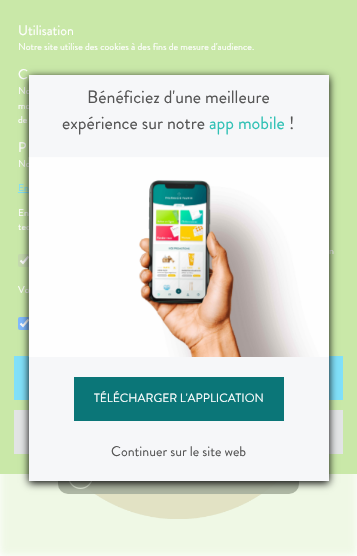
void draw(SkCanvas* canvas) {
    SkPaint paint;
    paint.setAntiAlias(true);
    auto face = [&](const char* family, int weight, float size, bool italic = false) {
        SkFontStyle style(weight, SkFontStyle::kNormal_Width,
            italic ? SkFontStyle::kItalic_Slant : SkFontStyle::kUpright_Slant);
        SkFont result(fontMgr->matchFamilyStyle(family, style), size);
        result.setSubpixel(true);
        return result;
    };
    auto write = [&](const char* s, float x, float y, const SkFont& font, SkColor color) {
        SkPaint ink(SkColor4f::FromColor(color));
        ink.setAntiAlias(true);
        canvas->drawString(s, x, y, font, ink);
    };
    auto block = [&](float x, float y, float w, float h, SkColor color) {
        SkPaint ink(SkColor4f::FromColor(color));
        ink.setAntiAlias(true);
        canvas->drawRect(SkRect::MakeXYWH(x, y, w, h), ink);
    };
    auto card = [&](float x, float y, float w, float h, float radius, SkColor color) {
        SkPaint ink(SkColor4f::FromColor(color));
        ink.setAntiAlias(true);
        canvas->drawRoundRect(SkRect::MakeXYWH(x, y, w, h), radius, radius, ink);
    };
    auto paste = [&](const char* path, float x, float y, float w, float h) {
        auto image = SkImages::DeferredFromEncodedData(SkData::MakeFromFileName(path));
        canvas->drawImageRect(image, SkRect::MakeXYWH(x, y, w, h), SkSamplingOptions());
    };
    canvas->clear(SK_ColorWHITE);
    paste("pic3.png", 78, 481, 200, 38);
    card(58, 459, 241, 35, 10, SkColorSetARGB(230, 153, 153, 153));
    paste("pic2.png", 68, 481, 25, 8);
    paint.setColor(SkColorSetARGB(77, 201, 232, 168));
    paint.setMaskFilter(SkMaskFilter::MakeBlur(kNormal_SkBlurStyle, 4));
    canvas->drawRect(SkRect::MakeXYWH(0, 0, 357, 556), paint);
    paint.setMaskFilter(nullptr);
    block(0, 0, 357, 474, SkColorSetRGB(201, 232, 168));
    auto kFont1 = face("Brandon Grotesque", 400, 14);
    write("Utilisation", 18, 35, kFont1, SK_ColorWHITE);
    auto kFont2 = face("Brandon Grotesque", 400, 10);
    write("Notre site utilise des cookies à des fins de mesure d'audience.", 18, 50, kFont2, SK_ColorWHITE);
    write("C", 18, 79, kFont1, SK_ColorWHITE);
    write("No", 18, 94, kFont2, SK_ColorWHITE);
    write("mo", 18, 109, kFont2, SK_ColorWHITE);
    write("de", 18, 123, kFont2, SK_ColorWHITE);
    write("P", 18, 152, kFont1, SK_ColorWHITE);
    write("No", 18, 167, kFont2, SK_ColorWHITE);
    write("En", 18, 191, kFont2, SkColorSetRGB(128, 224, 249));
    block(18, 192, 11, 1, SkColorSetRGB(128, 224, 249));
    write("En", 18, 216, kFont2, SK_ColorWHITE);
    write("tec", 18, 230, kFont2, SK_ColorWHITE);
    write("n", 329, 254, kFont2, SK_ColorWHITE);
    card(18, 254, 13, 13, 2, SkColorSetRGB(197, 218, 174));
    paint.setStyle(SkPaint::kStroke_Style);
    paint.setStrokeWidth(2.1f);
    paint.setColor(SK_ColorWHITE);
    canvas->drawPath(SkPathBuilder().moveTo(20.5f, 260.5f).lineTo(23, 263).lineTo(28.5f, 256.5f).detach(), paint);
    write("Vo", 18, 293, kFont2, SK_ColorWHITE);
    card(18, 317, 13, 13, 2, SkColorSetRGB(128, 186, 255));
    canvas->drawPath(SkPathBuilder().moveTo(20.5f, 323.5f).lineTo(23, 326).lineTo(28.5f, 319.5f).detach(), paint);
    block(14, 356, 15, 44, SkColorSetRGB(128, 224, 249));
    block(329, 356, 14, 44, SkColorSetRGB(128, 224, 249));
    block(14, 410, 15, 44, SkColorSetRGB(226, 228, 229));
    block(329, 410, 14, 44, SkColorSetRGB(226, 228, 229));
    paint.setStyle(SkPaint::kFill_Style);
    paint.setColor(SK_ColorBLACK);
    paint.setMaskFilter(SkMaskFilter::MakeBlur(kNormal_SkBlurStyle, 4));
    canvas->drawRect(SkRect::MakeXYWH(29, 77, 300, 406), paint);
    paint.setMaskFilter(nullptr);
    block(29, 75, 300, 406, SkColorSetRGB(246, 247, 249));
    auto kFont3 = face("Brandon Grotesque", 400, 18);
    write("Bénéficiez d'une meilleure", 87, 103, kFont3, SkColorSetRGB(85, 85, 85));
    write("expérience sur notre", 62, 129, kFont3, SkColorSetRGB(85, 85, 85));
    write("app mobile", 209, 129, kFont3, SkColorSetRGB(48, 193, 181));
    write("!", 289, 129, kFont3, SkColorSetRGB(85, 85, 85));
    paste("pic1.png", 28, 157, 301, 200);
    block(74, 377, 210, 44, SkColorSetRGB(11, 118, 120));
    auto kFont4 = face("Brandon Grotesque", 400, 12);
    write("TÉLÉCHARGER L'APPLICATION", 94, 402, kFont4, SK_ColorWHITE);
    write("Continuer sur le site web", 111, 456, kFont1, SkColorSetRGB(85, 85, 85));
}
